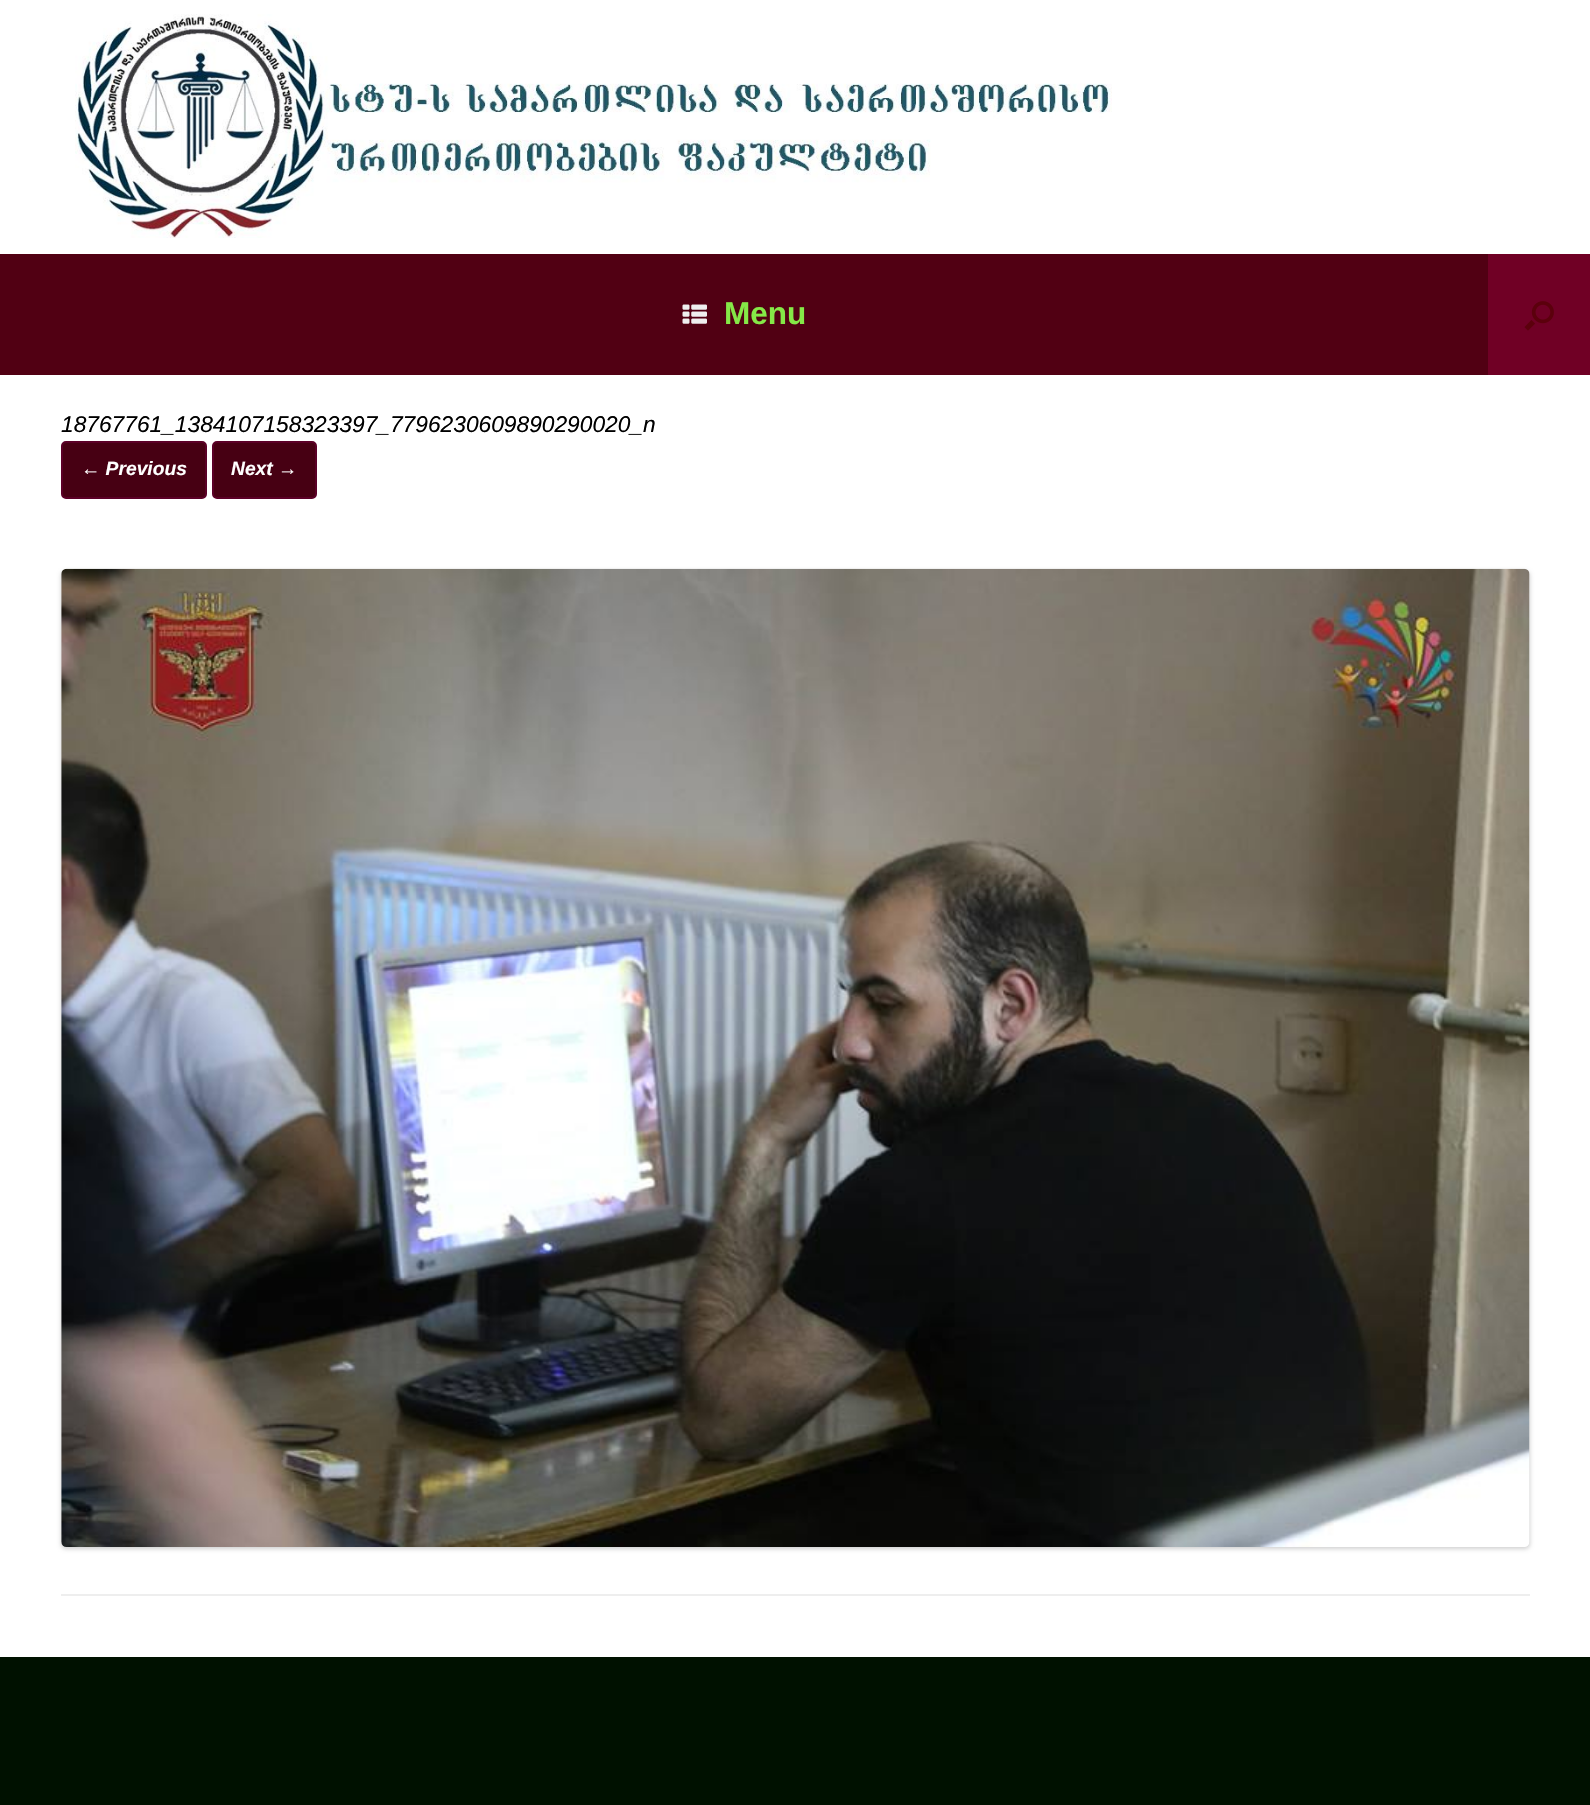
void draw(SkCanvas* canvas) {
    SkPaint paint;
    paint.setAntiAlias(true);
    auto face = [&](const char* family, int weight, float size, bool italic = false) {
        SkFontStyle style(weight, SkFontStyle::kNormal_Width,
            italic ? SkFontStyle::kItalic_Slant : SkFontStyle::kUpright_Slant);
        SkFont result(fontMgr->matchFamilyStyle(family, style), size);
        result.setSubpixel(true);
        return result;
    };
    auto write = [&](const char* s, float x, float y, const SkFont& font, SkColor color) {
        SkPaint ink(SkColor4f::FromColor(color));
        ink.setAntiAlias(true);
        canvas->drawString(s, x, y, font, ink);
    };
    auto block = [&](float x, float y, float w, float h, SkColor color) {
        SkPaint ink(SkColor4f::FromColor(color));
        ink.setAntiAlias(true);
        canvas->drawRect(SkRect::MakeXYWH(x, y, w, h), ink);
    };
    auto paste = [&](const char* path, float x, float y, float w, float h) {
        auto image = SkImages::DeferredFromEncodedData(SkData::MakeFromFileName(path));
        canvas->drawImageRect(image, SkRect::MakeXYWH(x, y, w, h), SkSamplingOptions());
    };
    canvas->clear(SkColorSetRGB(0, 17, 0));
    block(0, 0, 1590, 254, SK_ColorWHITE);
    paste("pic1.png", 75, 14, 1037, 224);
    block(0, 254, 1488, 121, SkColorSetRGB(81, 0, 19));
    paste("pic2.png", 682, 304, 25, 20);
    auto kFont1 = face("Liberation Sans", 700, 31.5f);
    write("Menu", 724, 324, kFont1, SkColorSetRGB(133, 232, 71));
    block(1488, 254, 102, 121, SkColorSetRGB(112, 0, 37));
    paste("pic3.png", 1524, 301, 30, 30);
    block(0, 375, 1590, 1282, SK_ColorWHITE);
    block(61, 1594, 1469, 2, SkColorSetRGB(238, 238, 238));
    auto kFont2 = face("Liberation Sans", 400, 22.75f, true);
    write("18767761_1384107158323397_7796230609890290020_n", 61, 432, kFont2, SK_ColorBLACK);
    paint.setColor(SkColorSetRGB(71, 0, 19));
    canvas->drawRoundRect(SkRect::MakeXYWH(62, 442, 144, 56), 4, 4, paint);
    paint.setStyle(SkPaint::kStroke_Style);
    paint.setStrokeWidth(2);
    paint.setColor(SkColorSetRGB(91, 0, 39));
    canvas->drawRoundRect(SkRect::MakeXYWH(62, 442, 144, 56), 4, 4, paint);
    auto kFont3 = face("Liberation Sans", 700, 19.25f, true);
    write("← Previous", 81, 475, kFont3, SK_ColorWHITE);
    paint.setStyle(SkPaint::kFill_Style);
    paint.setColor(SkColorSetRGB(71, 0, 19));
    canvas->drawRoundRect(SkRect::MakeXYWH(213, 442, 103, 56), 4, 4, paint);
    paint.setStyle(SkPaint::kStroke_Style);
    paint.setColor(SkColorSetRGB(91, 0, 39));
    canvas->drawRoundRect(SkRect::MakeXYWH(213, 442, 103, 56), 4, 4, paint);
    write("Next →", 231, 475, kFont3, SK_ColorWHITE);
    paint.setStyle(SkPaint::kFill_Style);
    paint.setColor(SkColorSetARGB(46, 0, 0, 0));
    paint.setMaskFilter(SkMaskFilter::MakeBlur(kNormal_SkBlurStyle, 2));
    canvas->drawRoundRect(SkRect::MakeXYWH(61, 571, 1469, 978), 5, 5, paint);
    paint.setMaskFilter(nullptr);
    paste("pic4.png", 61, 568, 1469, 979);
}
